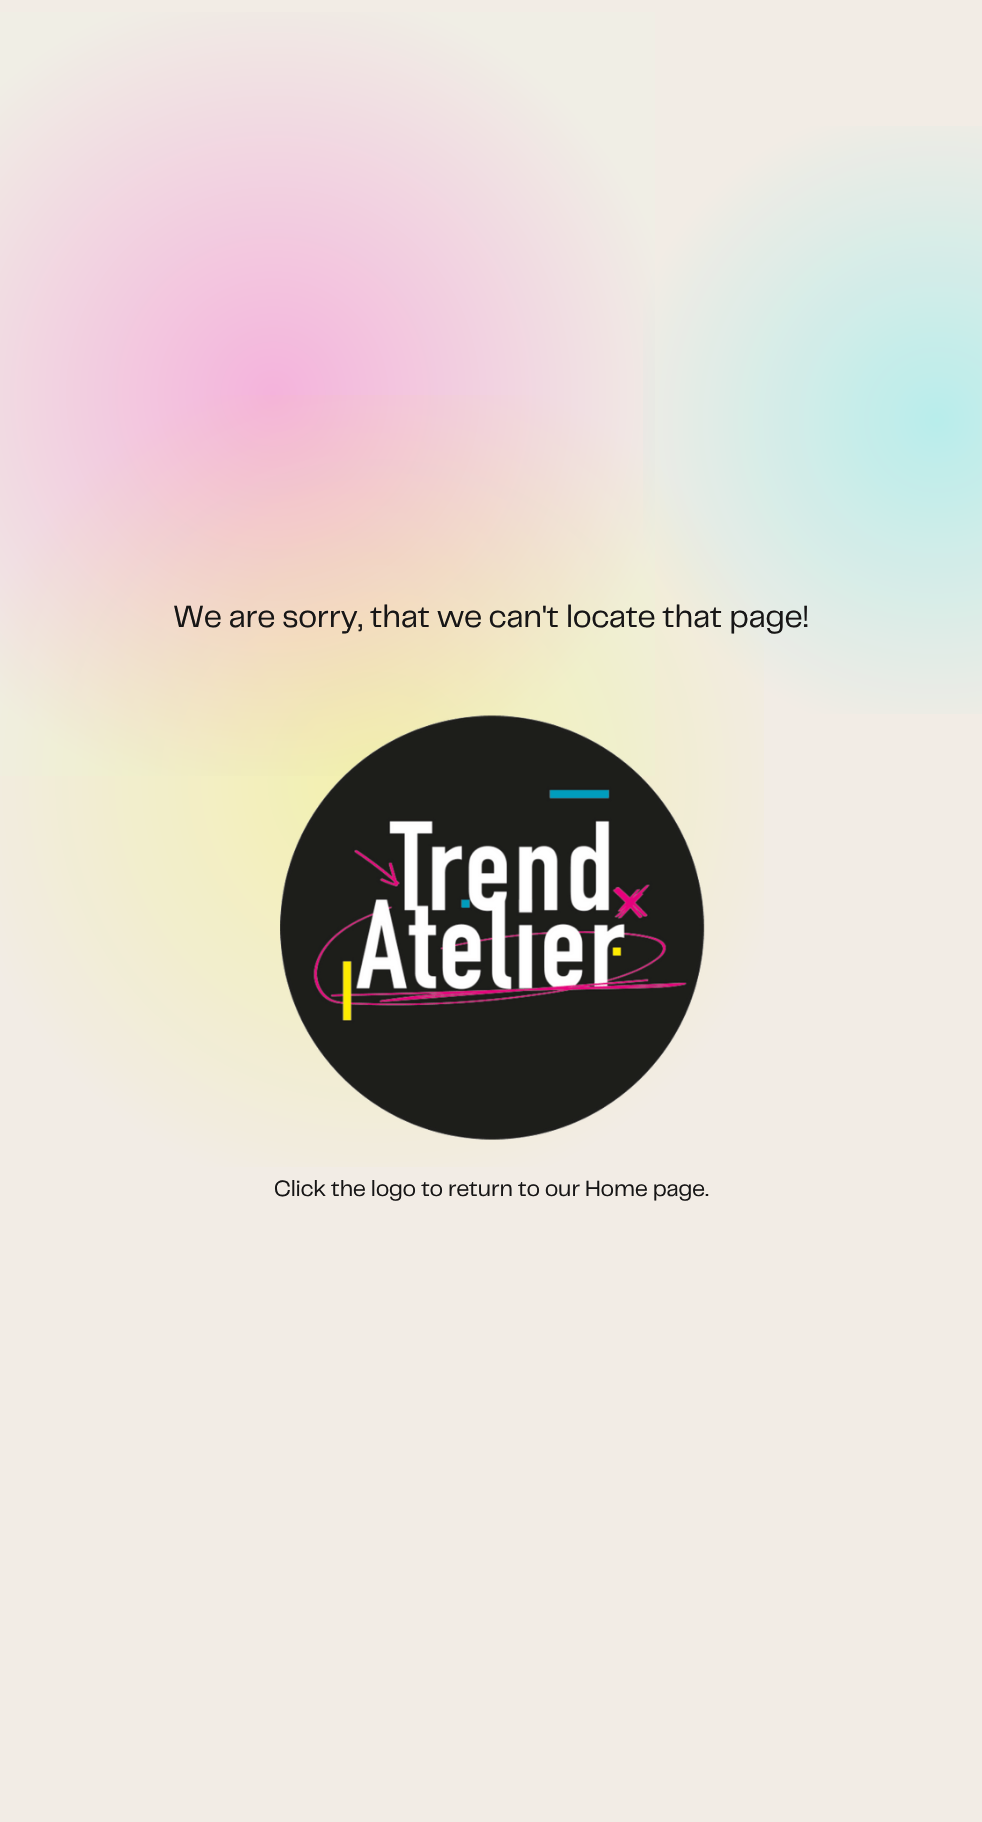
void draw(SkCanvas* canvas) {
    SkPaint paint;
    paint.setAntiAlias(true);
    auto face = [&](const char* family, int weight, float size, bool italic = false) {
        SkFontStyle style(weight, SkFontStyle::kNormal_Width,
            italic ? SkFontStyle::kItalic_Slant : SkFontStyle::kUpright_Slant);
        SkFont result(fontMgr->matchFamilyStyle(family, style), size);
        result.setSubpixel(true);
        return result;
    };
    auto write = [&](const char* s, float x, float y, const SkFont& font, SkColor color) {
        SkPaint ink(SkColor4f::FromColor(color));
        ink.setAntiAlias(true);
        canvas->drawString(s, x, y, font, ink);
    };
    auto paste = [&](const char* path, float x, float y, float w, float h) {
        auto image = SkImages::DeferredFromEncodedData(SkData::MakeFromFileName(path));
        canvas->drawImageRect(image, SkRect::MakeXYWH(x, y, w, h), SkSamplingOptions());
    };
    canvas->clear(SkColorSetRGB(242, 236, 229));
    {
        const SkColor colors[] = {SkColorSetRGB(244, 179, 220), SkColorSetRGB(240, 238, 229), SkColorSetRGB(240, 238, 229)};
        const float stops[] = {0, 0.6f, 1};
        paint.setShader(SkGradientShader::MakeRadial({273, 394}, 690, colors, stops, 3, SkTileMode::kClamp));
        paint.setAlpha(255);
    }
    canvas->drawRect(SkRect::MakeXYWH(0, 12, 655, 764), paint);
    {
        const SkColor colors[] = {SkColorSetARGB(64, 247, 253, 4), SkColorSetARGB(0, 247, 253, 4), SkColorSetARGB(0, 242, 236, 229)};
        const float stops[] = {0, 0.6f, 1};
        paint.setShader(SkGradientShader::MakeRadial({377, 781}, 708, colors, stops, 3, SkTileMode::kClamp));
        paint.setAlpha(255);
    }
    canvas->drawRect(SkRect::MakeXYWH(0, 395, 764, 772), paint);
    {
        const SkColor colors[] = {SkColorSetARGB(64, 13, 242, 255), SkColorSetARGB(0, 13, 242, 255), SkColorSetARGB(0, 242, 236, 229)};
        const float stops[] = {0, 0.59f, 1};
        paint.setShader(SkGradientShader::MakeRadial({937, 420}, 546, colors, stops, 3, SkTileMode::kClamp));
        paint.setAlpha(255);
    }
    canvas->drawRect(SkRect::MakeXYWH(643, 126, 339, 588), paint);
    auto kFont1 = face("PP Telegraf", 400, 32);
    write("We are sorry, that we can't locate that page!", 173, 627, kFont1, SkColorSetRGB(23, 22, 22));
    paste("pic1.png", 280, 715, 425, 425);
    auto kFont2 = face("PP Telegraf", 400, 22.9f);
    write("Click the logo to return to our Home page.", 274, 1196, kFont2, SkColorSetRGB(23, 22, 22));
}
